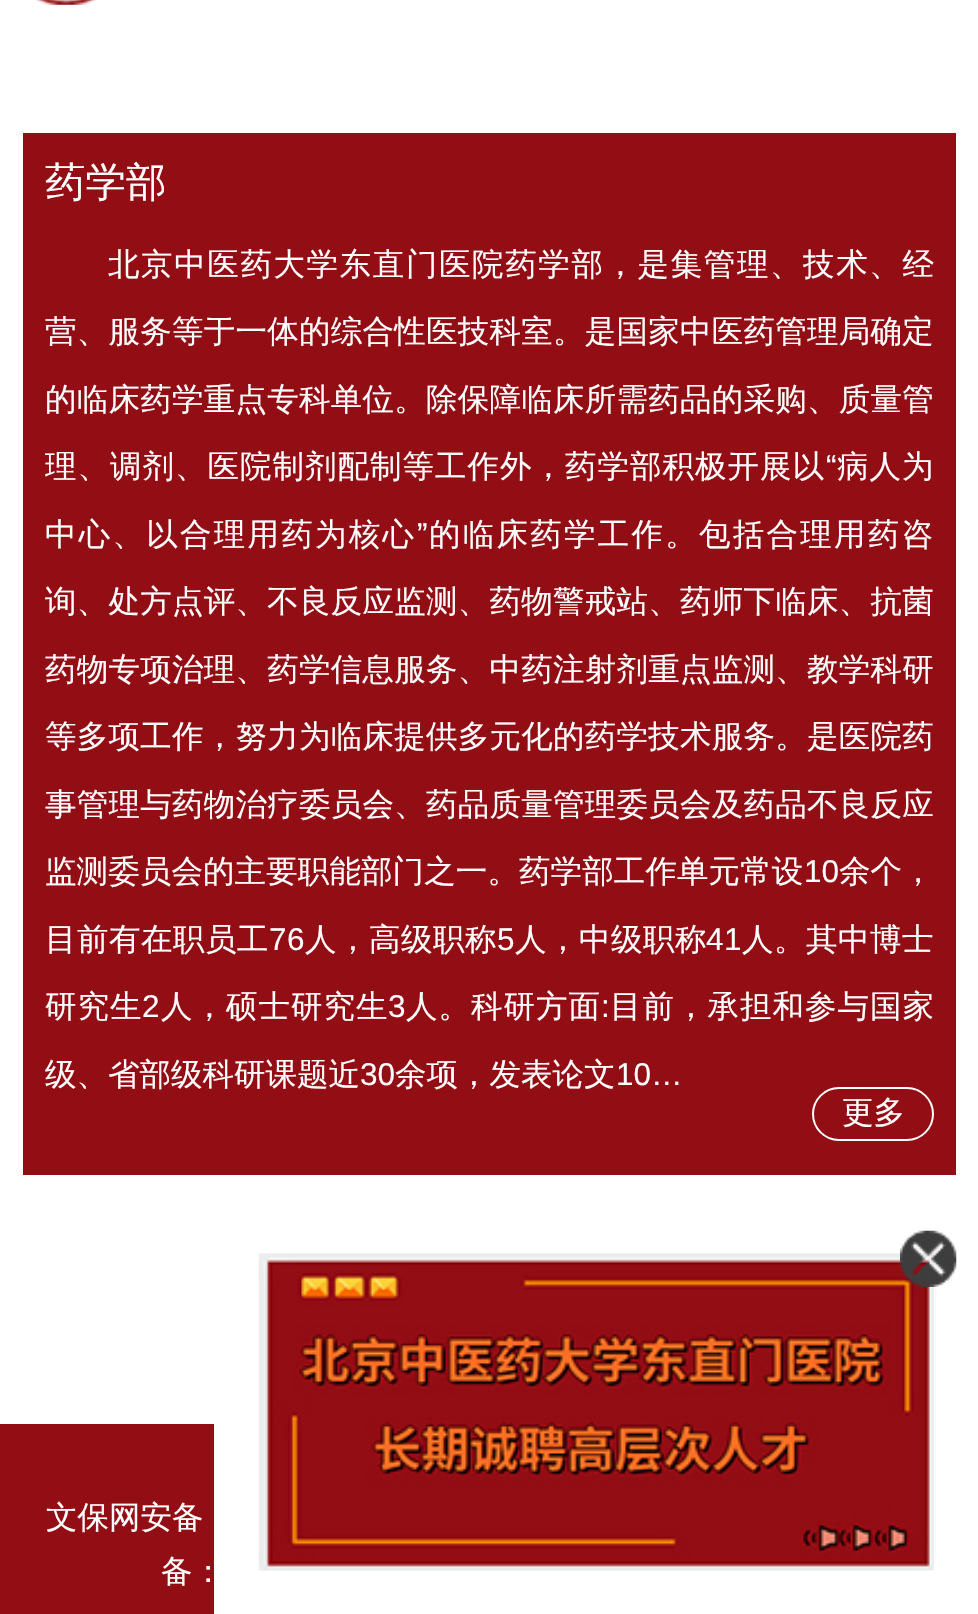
void draw(SkCanvas* canvas) {
    SkPaint paint;
    paint.setAntiAlias(true);
    auto face = [&](const char* family, int weight, float size, bool italic = false) {
        SkFontStyle style(weight, SkFontStyle::kNormal_Width,
            italic ? SkFontStyle::kItalic_Slant : SkFontStyle::kUpright_Slant);
        SkFont result(fontMgr->matchFamilyStyle(family, style), size);
        result.setSubpixel(true);
        return result;
    };
    auto write = [&](const char* s, float x, float y, const SkFont& font, SkColor color) {
        SkPaint ink(SkColor4f::FromColor(color));
        ink.setAntiAlias(true);
        canvas->drawString(s, x, y, font, ink);
    };
    auto writeSpaced = [&](const char* s, float x, float y, const SkFont& font, const SkPaint& ink, float letter, float word) {
        std::vector<SkGlyphID> glyphs(font.countText(s, strlen(s), SkTextEncoding::kUTF8));
        std::vector<float> xs(glyphs.size());
        font.textToGlyphs(s, strlen(s), SkTextEncoding::kUTF8, glyphs);
        font.getXPos(glyphs, xs, x);
        float extra = 0;
        for (size_t i = 0; i < glyphs.size(); i++) {
            xs[i] += extra;
            extra += letter + word * (glyphs[i] == font.unicharToGlyph(' '));
        }
        canvas->drawTextBlob(SkTextBlob::MakeFromPosHGlyphs(glyphs, xs, y, font), 0, 0, ink);
    };
    auto block = [&](float x, float y, float w, float h, SkColor color) {
        SkPaint ink(SkColor4f::FromColor(color));
        ink.setAntiAlias(true);
        canvas->drawRect(SkRect::MakeXYWH(x, y, w, h), ink);
    };
    auto paste = [&](const char* path, float x, float y, float w, float h) {
        auto image = SkImages::DeferredFromEncodedData(SkData::MakeFromFileName(path));
        canvas->drawImageRect(image, SkRect::MakeXYWH(x, y, w, h), SkSamplingOptions());
    };
    canvas->clear(SK_ColorWHITE);
    paste("pic1.png", 35, 0, 62, 5);
    block(23, 133, 933, 1042, SkColorSetRGB(146, 13, 20));
    auto kFont1 = face("WenQuanYi Zen Hei", 500, 40.5f);
    write("药学部", 45, 196, kFont1, SK_ColorWHITE);
    auto kFont2 = face("WenQuanYi Zen Hei", 500, 31.5f);
    paint.setColor(SK_ColorWHITE);
    writeSpaced("北京中医药大学东直门医院药学部，是集管理、技术、经", 108, 275, kFont2, paint, 1.6f, 0);
    writeSpaced("营、服务等于一体的综合性医技科室。是国家中医药管理局确定", 45, 342, kFont2, paint, 0.25f, 0);
    writeSpaced("的临床药学重点专科单位。除保障临床所需药品的采购、质量管", 45, 410, kFont2, paint, 0.25f, 0);
    writeSpaced("理、调剂、医院制剂配制等工作外，药学部积极开展以", 45, 477, kFont2, paint, 1, 0);
    auto kFont3 = face("Liberation Sans", 400, 31.5f);
    writeSpaced("“", 826, 477, kFont3, paint, 1, 0);
    writeSpaced("病人为", 837, 477, kFont2, paint, 1, 0);
    writeSpaced("中心、以合理用药为核心", 45, 545, kFont2, paint, 2.25f, 0);
    writeSpaced("”", 417, 545, kFont3, paint, 2.25f, 0);
    writeSpaced("的临床药学工作。包括合理用药咨", 429, 545, kFont2, paint, 2.25f, 0);
    writeSpaced("询、处方点评、不良反应监测、药物警戒站、药师下临床、抗菌", 45, 612, kFont2, paint, 0.25f, 0);
    writeSpaced("药物专项治理、药学信息服务、中药注射剂重点监测、教学科研", 45, 680, kFont2, paint, 0.25f, 0);
    writeSpaced("等多项工作，努力为临床提供多元化的药学技术服务。是医院药", 45, 747, kFont2, paint, 0.25f, 0);
    writeSpaced("事管理与药物治疗委员会、药品质量管理委员会及药品不良反应", 45, 815, kFont2, paint, 0.25f, 0);
    writeSpaced("监测委员会的主要职能部门之一。药学部工作单元常设", 45, 882, kFont2, paint, 0.1f, 0);
    writeSpaced("10", 804, 882, kFont3, paint, 0.1f, 0);
    writeSpaced("余个，", 839, 882, kFont2, paint, 0.1f, 0);
    writeSpaced("目前有在职员工", 45, 950, kFont2, paint, 0.5f, 0);
    writeSpaced("76", 269, 950, kFont3, paint, 0.5f, 0);
    writeSpaced("人，高级职称", 305, 950, kFont2, paint, 0.5f, 0);
    writeSpaced("5", 497, 950, kFont3, paint, 0.5f, 0);
    writeSpaced("人，中级职称", 515, 950, kFont2, paint, 0.5f, 0);
    writeSpaced("41", 706, 950, kFont3, paint, 0.5f, 0);
    writeSpaced("人。其中博士", 742, 950, kFont2, paint, 0.5f, 0);
    writeSpaced("研究生", 45, 1017, kFont2, paint, 1, 0);
    writeSpaced("2", 142, 1017, kFont3, paint, 1, 0);
    writeSpaced("人，硕士研究生", 161, 1017, kFont2, paint, 1, 0);
    writeSpaced("3", 388, 1017, kFont3, paint, 1, 0);
    writeSpaced("人。科研方面", 406, 1017, kFont2, paint, 1, 0);
    writeSpaced(":", 601, 1017, kFont3, paint, 1, 0);
    writeSpaced("目前，承担和参与国家", 610, 1017, kFont2, paint, 1, 0);
    write("级、省部级科研课题近", 45, 1085, kFont2, SK_ColorWHITE);
    write("30", 360, 1085, kFont3, SK_ColorWHITE);
    write("余项，发表论文", 395, 1085, kFont2, SK_ColorWHITE);
    write("10…", 616, 1085, kFont3, SK_ColorWHITE);
    paint.setStyle(SkPaint::kStroke_Style);
    paint.setStrokeWidth(2);
    canvas->drawRoundRect(SkRect::MakeXYWH(813, 1088, 120, 52), 26, 26, paint);
    write("更多", 842, 1123, kFont2, SK_ColorWHITE);
    block(0, 1424, 214, 190, SkColorSetRGB(146, 13, 20));
    write("文保网安备", 46, 1528, kFont2, SK_ColorWHITE);
    write("备：", 161, 1582, kFont2, SK_ColorWHITE);
    paste("pic3.png", 258, 1253, 676, 318);
    paste("pic2.png", 900, 1230, 57, 57);
}
